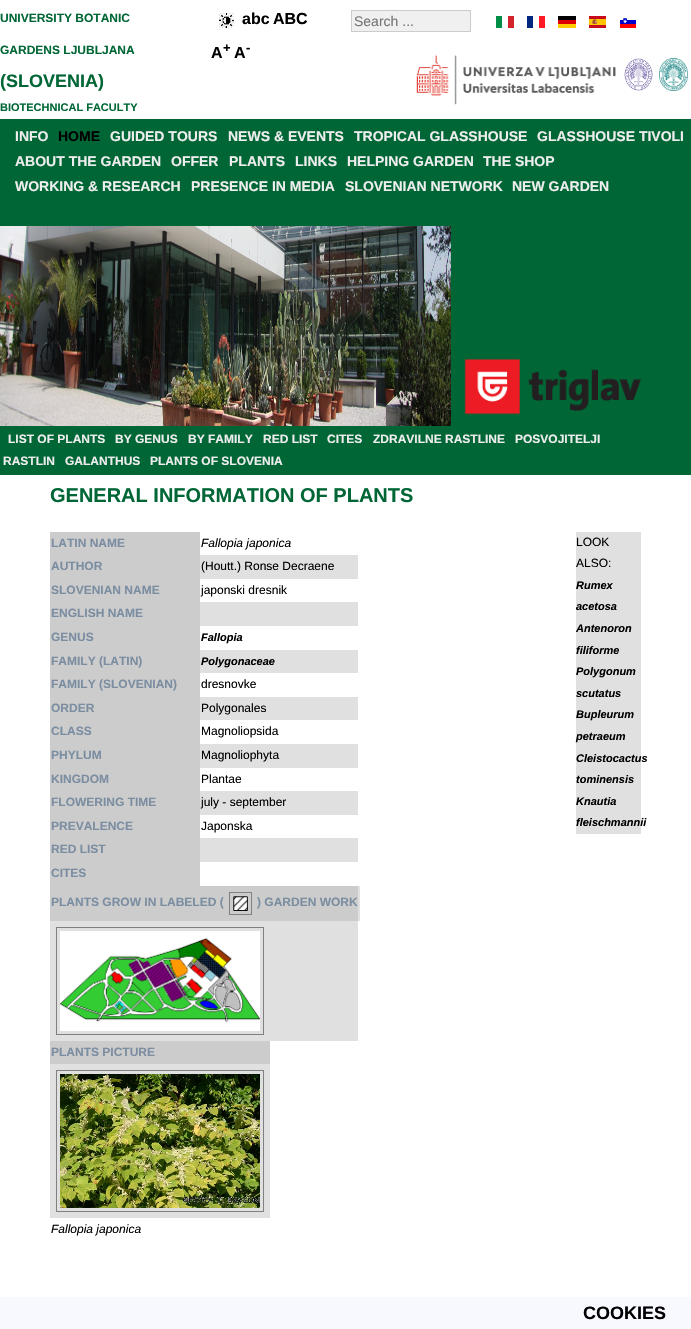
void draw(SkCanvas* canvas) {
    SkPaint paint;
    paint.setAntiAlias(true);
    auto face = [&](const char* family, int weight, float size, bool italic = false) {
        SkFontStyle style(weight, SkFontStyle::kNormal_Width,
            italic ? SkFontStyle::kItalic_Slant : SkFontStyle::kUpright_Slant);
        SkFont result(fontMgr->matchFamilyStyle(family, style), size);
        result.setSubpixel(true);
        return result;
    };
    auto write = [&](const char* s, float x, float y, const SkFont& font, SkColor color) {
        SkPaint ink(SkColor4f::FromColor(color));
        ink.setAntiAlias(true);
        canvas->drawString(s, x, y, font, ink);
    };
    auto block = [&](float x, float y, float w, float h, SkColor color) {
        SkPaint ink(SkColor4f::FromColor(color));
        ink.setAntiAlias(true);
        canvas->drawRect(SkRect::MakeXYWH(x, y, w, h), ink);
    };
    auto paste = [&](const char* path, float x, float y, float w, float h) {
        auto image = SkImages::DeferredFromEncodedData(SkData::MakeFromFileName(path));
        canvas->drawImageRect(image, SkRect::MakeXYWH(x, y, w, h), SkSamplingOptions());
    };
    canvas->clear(SK_ColorWHITE);
    auto kFont1 = face("Liberation Sans", 700, 12);
    write("UNIVERSITY BOTANIC", 0, 22, kFont1, SkColorSetRGB(0, 102, 53));
    write("GARDENS LJUBLJANA", 0, 54, kFont1, SkColorSetRGB(0, 102, 53));
    auto kFont2 = face("Liberation Sans", 700, 18);
    write("(SLOVENIA)", 0, 87, kFont2, SkColorSetRGB(0, 102, 53));
    paste("pic1.png", 219, 13, 15, 15);
    auto kFont3 = face("Liberation Sans", 700, 16);
    write("abc", 242, 24, kFont3, SK_ColorBLACK);
    write("ABC", 273, 24, kFont3, SK_ColorBLACK);
    write("A", 211, 58, kFont3, SK_ColorBLACK);
    auto kFont4 = face("Liberation Sans", 700, 13);
    write("+", 223, 52, kFont4, SK_ColorBLACK);
    write("A", 234, 58, kFont3, SK_ColorBLACK);
    write("-", 246, 52, kFont4, SK_ColorBLACK);
    paint.setColor(SkColorSetRGB(240, 240, 240));
    canvas->drawRect(SkRect::MakeXYWH(351.5f, 10.5f, 119, 21), paint);
    paint.setStyle(SkPaint::kStroke_Style);
    paint.setStrokeWidth(1);
    paint.setColor(SkColorSetRGB(204, 204, 204));
    canvas->drawRect(SkRect::MakeXYWH(351.5f, 10.5f, 119, 21), paint);
    auto kFont5 = face("Liberation Sans", 400, 14);
    write("Search ...", 354, 26, kFont5, SkColorSetRGB(117, 117, 117));
    paste("pic2.png", 496, 16, 18, 12);
    paste("pic3.png", 527, 16, 18, 12);
    paste("pic4.png", 558, 16, 18, 12);
    paste("pic5.png", 589, 16, 17, 12);
    paste("pic6.png", 620, 18, 16, 10);
    paste("pic7.png", 416, 55, 200, 50);
    paste("pic8.png", 624, 58, 29, 33);
    paste("pic9.png", 659, 58, 29, 33);
    auto kFont6 = face("Liberation Sans", 700, 11);
    write("BIOTECHNICAL FACULTY", 0, 111, kFont6, SkColorSetRGB(0, 102, 53));
    block(0, 119, 691, 356, SkColorSetRGB(0, 102, 53));
    auto kFont7 = face("Liberation Sans", 700, 14);
    write("INFO", 15, 141, kFont7, SkColorSetRGB(238, 238, 238));
    write("HOME", 58, 141, kFont7, SK_ColorBLACK);
    write("GUIDED TOURS", 110, 141, kFont7, SkColorSetRGB(238, 238, 238));
    write("NEWS & EVENTS", 228, 141, kFont7, SkColorSetRGB(238, 238, 238));
    write("TROPICAL GLASSHOUSE", 354, 141, kFont7, SkColorSetRGB(238, 238, 238));
    write("GLASSHOUSE TIVOLI", 537, 141, kFont7, SkColorSetRGB(238, 238, 238));
    write("ABOUT THE GARDEN", 15, 166, kFont7, SkColorSetRGB(238, 238, 238));
    write("OFFER", 171, 166, kFont7, SkColorSetRGB(238, 238, 238));
    write("PLANTS", 229, 166, kFont7, SkColorSetRGB(238, 238, 238));
    write("LINKS", 295, 166, kFont7, SkColorSetRGB(238, 238, 238));
    write("HELPING GARDEN", 347, 166, kFont7, SkColorSetRGB(238, 238, 238));
    write("THE SHOP", 483, 166, kFont7, SkColorSetRGB(238, 238, 238));
    write("WORKING & RESEARCH", 15, 191, kFont7, SkColorSetRGB(238, 238, 238));
    write("PRESENCE IN MEDIA", 191, 191, kFont7, SkColorSetRGB(238, 238, 238));
    write("SLOVENIAN NETWORK", 345, 191, kFont7, SkColorSetRGB(238, 238, 238));
    write("NEW GARDEN", 512, 191, kFont7, SkColorSetRGB(238, 238, 238));
    paste("pic10.png", 0, 226, 451, 200);
    paste("pic11.png", 464, 358, 178, 57);
    write("LIST OF PLANTS", 8, 443, kFont1, SkColorSetRGB(238, 238, 238));
    write("BY GENUS", 115, 443, kFont1, SkColorSetRGB(238, 238, 238));
    write("BY FAMILY", 188, 443, kFont1, SkColorSetRGB(238, 238, 238));
    write("RED LIST", 263, 443, kFont1, SkColorSetRGB(238, 238, 238));
    write("CITES", 327, 443, kFont1, SkColorSetRGB(238, 238, 238));
    write("ZDRAVILNE RASTLINE", 373, 443, kFont1, SkColorSetRGB(238, 238, 238));
    write("POSVOJITELJI", 515, 443, kFont1, SkColorSetRGB(238, 238, 238));
    write("RASTLIN", 3, 465, kFont1, SkColorSetRGB(238, 238, 238));
    write("GALANTHUS", 65, 465, kFont1, SkColorSetRGB(238, 238, 238));
    write("PLANTS OF SLOVENIA", 150, 465, kFont1, SkColorSetRGB(238, 238, 238));
    auto kFont8 = face("Liberation Sans", 700, 20);
    write("GENERAL INFORMATION OF PLANTS", 50, 502, kFont8, SkColorSetRGB(0, 102, 53));
    block(50, 532, 150, 354, SkColorSetRGB(204, 204, 204));
    write("LATIN NAME", 51, 547, kFont1, SkColorSetRGB(123, 141, 161));
    auto kFont9 = face("Liberation Sans", 400, 12, true);
    write("Fallopia japonica", 201, 547, kFont9, SK_ColorBLACK);
    write("AUTHOR", 51, 570, kFont1, SkColorSetRGB(123, 141, 161));
    block(200, 555, 158, 24, SkColorSetRGB(224, 224, 224));
    auto kFont10 = face("Liberation Sans", 400, 12);
    write("(Houtt.) Ronse Decraene", 201, 570, kFont10, SK_ColorBLACK);
    write("SLOVENIAN NAME", 51, 594, kFont1, SkColorSetRGB(123, 141, 161));
    write("japonski dresnik", 201, 594, kFont10, SK_ColorBLACK);
    write("ENGLISH NAME", 51, 617, kFont1, SkColorSetRGB(123, 141, 161));
    block(200, 602, 158, 24, SkColorSetRGB(224, 224, 224));
    write("GENUS", 51, 641, kFont1, SkColorSetRGB(123, 141, 161));
    auto kFont11 = face("Liberation Sans", 700, 11, true);
    write("Fallopia", 201, 641, kFont11, SK_ColorBLACK);
    write("FAMILY (LATIN)", 51, 665, kFont1, SkColorSetRGB(123, 141, 161));
    block(200, 650, 158, 23, SkColorSetRGB(224, 224, 224));
    write("Polygonaceae", 201, 665, kFont11, SK_ColorBLACK);
    write("FAMILY (SLOVENIAN)", 51, 688, kFont1, SkColorSetRGB(123, 141, 161));
    write("dresnovke", 201, 688, kFont10, SK_ColorBLACK);
    write("ORDER", 51, 712, kFont1, SkColorSetRGB(123, 141, 161));
    block(200, 697, 158, 23, SkColorSetRGB(224, 224, 224));
    write("Polygonales", 201, 712, kFont10, SK_ColorBLACK);
    write("CLASS", 51, 735, kFont1, SkColorSetRGB(123, 141, 161));
    write("Magnoliopsida", 201, 735, kFont10, SK_ColorBLACK);
    write("PHYLUM", 51, 759, kFont1, SkColorSetRGB(123, 141, 161));
    block(200, 744, 158, 24, SkColorSetRGB(224, 224, 224));
    write("Magnoliophyta", 201, 759, kFont10, SK_ColorBLACK);
    write("KINGDOM", 51, 783, kFont1, SkColorSetRGB(123, 141, 161));
    write("Plantae", 201, 783, kFont10, SK_ColorBLACK);
    write("FLOWERING TIME", 51, 806, kFont1, SkColorSetRGB(123, 141, 161));
    block(200, 791, 158, 24, SkColorSetRGB(224, 224, 224));
    write("july - september", 201, 806, kFont10, SK_ColorBLACK);
    write("PREVALENCE", 51, 830, kFont1, SkColorSetRGB(123, 141, 161));
    write("Japonska", 201, 830, kFont10, SK_ColorBLACK);
    write("RED LIST", 51, 853, kFont1, SkColorSetRGB(123, 141, 161));
    block(200, 838, 158, 24, SkColorSetRGB(224, 224, 224));
    write("CITES", 51, 877, kFont1, SkColorSetRGB(123, 141, 161));
    block(50, 886, 308, 35, SkColorSetRGB(204, 204, 204));
    paint.setColor(SkColorSetRGB(128, 128, 128));
    canvas->drawRect(SkRect::MakeXYWH(229.5f, 892.5f, 22, 22), paint);
    write("PLANTS GROW IN LABELED (", 51, 906, kFont1, SkColorSetRGB(123, 141, 161));
    paste("pic12.png", 233, 896, 15, 15);
    write(") GARDEN WORK", 257, 906, kFont1, SkColorSetRGB(123, 141, 161));
    block(358, 886, 2, 35, SkColorSetRGB(224, 224, 224));
    block(50, 921, 308, 120, SkColorSetRGB(224, 224, 224));
    canvas->drawRect(SkRect::MakeXYWH(56.5f, 927.5f, 207, 107), paint);
    paste("pic13.png", 60, 931, 200, 100);
    block(50, 1041, 220, 23, SkColorSetRGB(204, 204, 204));
    write("PLANTS PICTURE", 51, 1056, kFont1, SkColorSetRGB(123, 141, 161));
    block(50, 1064, 220, 154, SkColorSetRGB(224, 224, 224));
    canvas->drawRect(SkRect::MakeXYWH(56.5f, 1070.5f, 207, 141), paint);
    paste("pic14.png", 60, 1074, 200, 134);
    write("Fallopia japonica", 51, 1233, kFont9, SK_ColorBLACK);
    block(576, 532, 65, 302, SkColorSetRGB(224, 224, 224));
    write("LOOK", 576, 546, kFont10, SK_ColorBLACK);
    write("ALSO:", 576, 567, kFont10, SK_ColorBLACK);
    write("Rumex", 576, 589, kFont11, SK_ColorBLACK);
    write("acetosa", 576, 610, kFont11, SK_ColorBLACK);
    write("Antenoron", 576, 632, kFont11, SK_ColorBLACK);
    write("filiforme", 576, 654, kFont11, SK_ColorBLACK);
    write("Polygonum", 576, 675, kFont11, SK_ColorBLACK);
    write("scutatus", 576, 697, kFont11, SK_ColorBLACK);
    write("Bupleurum", 576, 718, kFont11, SK_ColorBLACK);
    write("petraeum", 576, 740, kFont11, SK_ColorBLACK);
    write("Cleistocactus", 576, 762, kFont11, SK_ColorBLACK);
    write("tominensis", 576, 783, kFont11, SK_ColorBLACK);
    write("Knautia", 576, 805, kFont11, SK_ColorBLACK);
    write("fleischmannii", 576, 826, kFont11, SK_ColorBLACK);
    block(0, 1297, 691, 32, SkColorSetRGB(248, 248, 255));
    write("COOKIES", 583, 1319, kFont2, SK_ColorBLACK);
}
